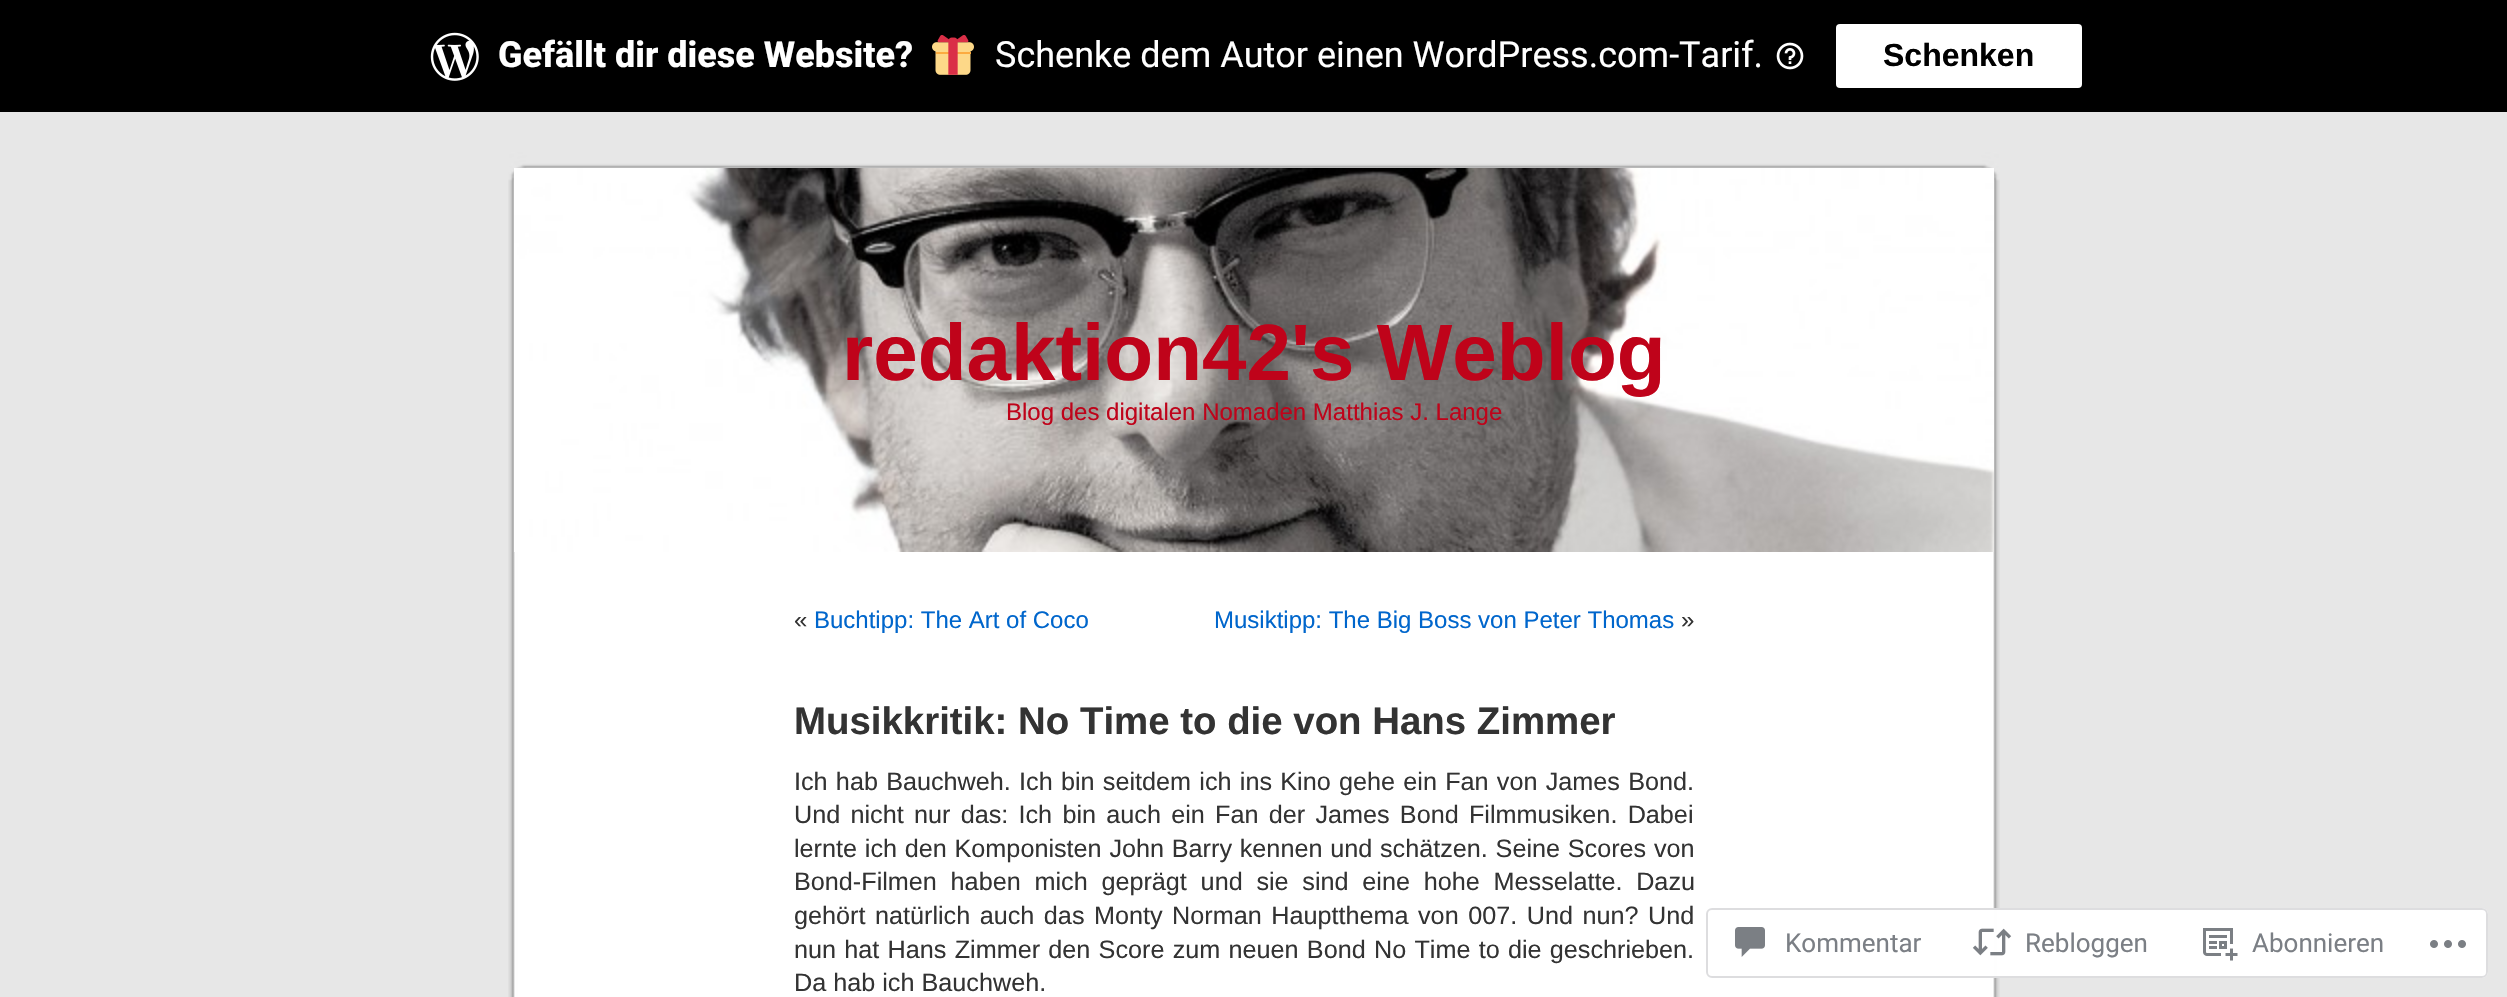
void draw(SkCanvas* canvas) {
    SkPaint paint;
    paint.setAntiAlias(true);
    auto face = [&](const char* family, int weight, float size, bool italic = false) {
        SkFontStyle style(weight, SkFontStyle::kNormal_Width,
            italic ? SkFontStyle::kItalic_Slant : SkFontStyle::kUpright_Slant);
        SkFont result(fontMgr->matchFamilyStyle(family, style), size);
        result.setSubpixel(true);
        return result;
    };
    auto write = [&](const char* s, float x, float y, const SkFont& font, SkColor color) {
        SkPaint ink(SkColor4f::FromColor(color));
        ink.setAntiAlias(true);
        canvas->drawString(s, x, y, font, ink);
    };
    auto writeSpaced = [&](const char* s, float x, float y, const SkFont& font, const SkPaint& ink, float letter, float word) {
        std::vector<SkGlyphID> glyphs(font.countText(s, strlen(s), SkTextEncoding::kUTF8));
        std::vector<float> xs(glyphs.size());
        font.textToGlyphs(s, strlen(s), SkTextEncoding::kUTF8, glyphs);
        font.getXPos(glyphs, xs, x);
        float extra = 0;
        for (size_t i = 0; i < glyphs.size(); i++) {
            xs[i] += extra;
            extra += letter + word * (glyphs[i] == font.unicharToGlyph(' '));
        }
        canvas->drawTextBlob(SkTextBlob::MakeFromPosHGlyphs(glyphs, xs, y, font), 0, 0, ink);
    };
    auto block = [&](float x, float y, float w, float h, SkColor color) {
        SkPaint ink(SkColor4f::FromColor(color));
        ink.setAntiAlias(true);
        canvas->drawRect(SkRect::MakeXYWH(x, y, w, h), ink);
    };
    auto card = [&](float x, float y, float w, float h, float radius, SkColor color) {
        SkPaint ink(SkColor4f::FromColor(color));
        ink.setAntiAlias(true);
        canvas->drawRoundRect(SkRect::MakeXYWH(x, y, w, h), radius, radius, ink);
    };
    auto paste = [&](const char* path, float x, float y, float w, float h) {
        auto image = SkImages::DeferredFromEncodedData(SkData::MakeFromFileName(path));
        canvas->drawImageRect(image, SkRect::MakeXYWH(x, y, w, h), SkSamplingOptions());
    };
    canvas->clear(SkColorSetRGB(231, 231, 231));
    block(0, 0, 2507, 112, SK_ColorBLACK);
    paste("pic1.png", 430, 32, 49, 49);
    auto kFont1 = face("Roboto", 800, 36);
    write("Gefällt dir diese Website?", 498, 67, kFont1, SK_ColorWHITE);
    paste("pic2.png", 932, 35, 42, 40);
    auto kFont2 = face("Roboto", 400, 36);
    write("Schenke dem Autor einen WordPress.com-Tarif.", 995, 67, kFont2, SK_ColorWHITE);
    paste("pic3.png", 1776, 42, 28, 28);
    card(1836, 24, 246, 64, 4, SK_ColorWHITE);
    auto kFont3 = face("Liberation Sans", 700, 32);
    write("Schenken", 1883, 66, kFont3, SK_ColorBLACK);
    paste("pic4.png", 508, 552, 1492, 445);
    paste("pic5.png", 508, 152, 1492, 400);
    paste("pic6.png", 514, 168, 1480, 384);
    auto kFont4 = face("Liberation Sans", 700, 80);
    write("redaktion42's Weblog", 842, 380, kFont4, SkColorSetRGB(191, 3, 26));
    auto kFont5 = face("Liberation Sans", 400, 24);
    write("Blog des digitalen Nomaden Matthias J. Lange", 1006, 420, kFont5, SkColorSetRGB(191, 3, 26));
    write("«", 794, 628, kFont5, SkColorSetRGB(51, 51, 51));
    write("Buchtipp: The Art of Coco", 814, 628, kFont5, SkColorSetRGB(0, 102, 204));
    write("Musiktipp: The Big Boss von Peter Thomas", 1214, 628, kFont5, SkColorSetRGB(0, 102, 204));
    write("»", 1681, 628, kFont5, SkColorSetRGB(51, 51, 51));
    auto kFont6 = face("Liberation Sans", 700, 38.4f);
    write("Musikkritik: No Time to die von Hans Zimmer", 794, 734, kFont6, SkColorSetRGB(51, 51, 51));
    auto kFont7 = face("Liberation Sans", 400, 25.2f);
    paint.setColor(SkColorSetRGB(51, 51, 51));
    writeSpaced("Ich hab Bauchweh. Ich bin seitdem ich ins Kino gehe ein Fan von James Bond.", 794, 790, kFont7, paint, 0, 1.25f);
    writeSpaced("Und nicht nur das: Ich bin auch ein Fan der James Bond Filmmusiken. Dabei", 794, 823, kFont7, paint, 0, 3.25f);
    writeSpaced("lernte ich den Komponisten John Barry kennen und schätzen. Seine Scores von", 794, 857, kFont7, paint, 0, 0.75f);
    writeSpaced("Bond-Filmen haben mich geprägt und sie sind eine hohe Messelatte. Dazu", 794, 890, kFont7, paint, 0, 6.75f);
    writeSpaced("gehört natürlich auch das Monty Norman Hauptthema von 007. Und nun? Und", 794, 924, kFont7, paint, 0, 2.5f);
    writeSpaced("nun hat Hans Zimmer den Score zum neuen Bond No Time to die geschrieben.", 794, 958, kFont7, paint, 0, 1.25f);
    write("Da hab ich Bauchweh.", 794, 991, kFont7, SkColorSetRGB(51, 51, 51));
    card(1706, 908, 782, 70, 6, SkColorSetARGB(250, 255, 255, 255));
    paint.setStyle(SkPaint::kStroke_Style);
    paint.setStrokeWidth(2);
    paint.setColor(SkColorSetARGB(250, 220, 220, 222));
    canvas->drawRoundRect(SkRect::MakeXYWH(1707, 909, 780, 68), 5, 5, paint);
    paste("pic7.png", 1735, 927, 30, 30);
    auto kFont8 = face("Roboto", 400, 26);
    write("Kommentar", 1785, 952, kFont8, SkColorSetRGB(123, 127, 133));
    paste("pic8.png", 1972, 928, 40, 28);
    write("Rebloggen", 2025, 952, kFont8, SkColorSetRGB(123, 127, 133));
    paste("pic9.png", 2203, 928, 35, 33);
    write("Abonnieren", 2252, 952, kFont8, SkColorSetRGB(123, 127, 133));
    paste("pic10.png", 2430, 940, 36, 8);
}
